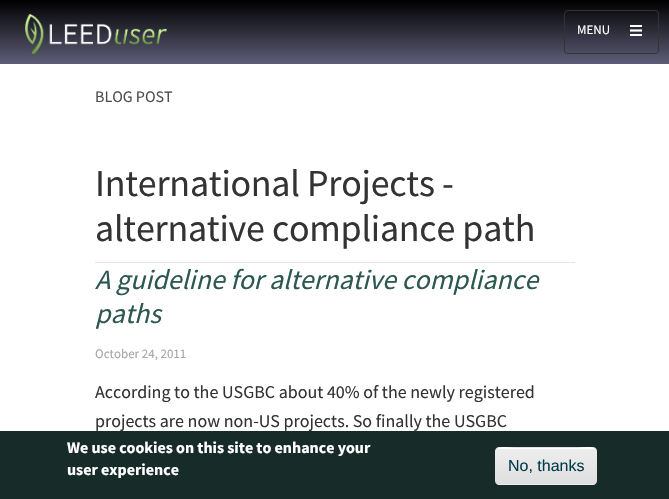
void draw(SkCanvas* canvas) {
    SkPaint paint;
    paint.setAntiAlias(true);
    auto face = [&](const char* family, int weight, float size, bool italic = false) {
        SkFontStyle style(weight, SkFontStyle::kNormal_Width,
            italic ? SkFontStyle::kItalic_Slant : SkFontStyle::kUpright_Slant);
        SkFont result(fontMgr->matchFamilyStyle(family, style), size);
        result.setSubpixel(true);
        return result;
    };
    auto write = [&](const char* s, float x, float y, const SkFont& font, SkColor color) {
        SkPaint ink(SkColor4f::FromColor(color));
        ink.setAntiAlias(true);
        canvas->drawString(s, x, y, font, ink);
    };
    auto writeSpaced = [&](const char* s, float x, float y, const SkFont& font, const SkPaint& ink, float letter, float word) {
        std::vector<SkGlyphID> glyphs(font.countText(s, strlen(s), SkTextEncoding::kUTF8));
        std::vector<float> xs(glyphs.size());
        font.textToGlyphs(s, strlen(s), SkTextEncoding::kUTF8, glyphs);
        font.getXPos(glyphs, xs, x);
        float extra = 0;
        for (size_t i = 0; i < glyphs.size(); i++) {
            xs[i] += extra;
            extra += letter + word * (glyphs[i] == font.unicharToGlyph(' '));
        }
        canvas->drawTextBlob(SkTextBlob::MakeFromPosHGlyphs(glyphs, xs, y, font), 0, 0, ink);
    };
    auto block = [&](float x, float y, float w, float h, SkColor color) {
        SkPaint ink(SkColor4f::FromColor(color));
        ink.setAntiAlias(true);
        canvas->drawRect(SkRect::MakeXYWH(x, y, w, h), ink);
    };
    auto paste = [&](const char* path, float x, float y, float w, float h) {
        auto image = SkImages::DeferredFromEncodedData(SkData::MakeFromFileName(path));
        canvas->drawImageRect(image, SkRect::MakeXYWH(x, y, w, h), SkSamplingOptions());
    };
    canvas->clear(SK_ColorWHITE);
    {
        const SkColor colors[] = {SK_ColorBLACK, SkColorSetRGB(93, 93, 119)};
        const float stops[] = {0, 1};
        const SkPoint ends[] = {{335, 0}, {335, 64}};
        paint.setShader(SkGradientShader::MakeLinear(ends, colors, stops, 2, SkTileMode::kClamp));
        paint.setAlpha(255);
    }
    canvas->drawRect(SkRect::MakeXYWH(0, 0, 669, 64), paint);
    paste("pic1.png", 25, 14, 142, 40);
    paint.setStyle(SkPaint::kStroke_Style);
    paint.setStrokeWidth(1);
    paint.setShader(nullptr);
    paint.setColor(SkColorSetRGB(51, 51, 51));
    canvas->drawRoundRect(SkRect::MakeXYWH(564.5f, 10.5f, 94, 43), 3.5f, 3.5f, paint);
    auto kFont1 = face("Source Sans Pro", 400, 13);
    write("MENU", 577, 34, kFont1, SK_ColorWHITE);
    block(630, 25, 12, 2, SK_ColorWHITE);
    canvas->save();
    canvas->clipRect(SkRect::MakeXYWH(630, 25, 12, 11));
    paint.setStrokeWidth(2.2f);
    paint.setColor(SK_ColorWHITE);
    canvas->drawPath(SkPathBuilder().moveTo(630, 30.5f).lineTo(646, 30.5f).detach(), paint);
    canvas->restore();
    block(630, 34, 12, 2, SK_ColorWHITE);
    auto kFont2 = face("Source Sans Pro", 400, 16);
    write("BLOG POST", 95, 102, kFont2, SkColorSetRGB(77, 77, 77));
    block(95, 262, 480, 1, SkColorSetRGB(230, 230, 230));
    auto kFont3 = face("Source Sans Pro", 400, 38);
    paint.setStyle(SkPaint::kFill_Style);
    paint.setColor(SkColorSetRGB(51, 51, 51));
    writeSpaced("International Projects -", 95, 196, kFont3, paint, -0.25f, 0);
    writeSpaced("alternative compliance path", 95, 241, kFont3, paint, -0.25f, 0);
    auto kFont4 = face("Source Sans Pro", 400, 28, true);
    write("A guideline for alternative compliance", 95, 289, kFont4, SkColorSetRGB(45, 87, 81));
    write("paths", 95, 323, kFont4, SkColorSetRGB(45, 87, 81));
    write("October 24, 2011", 95, 358, kFont1, SkColorSetRGB(166, 166, 166));
    auto kFont5 = face("Source Sans Pro", 400, 18);
    write("According to the USGBC about 40% of the newly registered", 95, 398, kFont5, SkColorSetRGB(51, 51, 51));
    write("projects are now non-US projects. So finally the USGBC", 95, 427, kFont5, SkColorSetRGB(51, 51, 51));
    block(0, 431, 669, 68, SkColorSetRGB(23, 44, 41));
    auto kFont6 = face("Source Sans Pro", 700, 16);
    write("We use cookies on this site to enhance your", 67, 453, kFont6, SK_ColorWHITE);
    write("user experience", 67, 475, kFont6, SK_ColorWHITE);
    canvas->save();
    canvas->clipPath(SkPathBuilder().moveTo(499, 447).lineTo(593, 447).cubicTo(595, 447, 597, 449, 597, 451).lineTo(597, 481).cubicTo(597, 483, 595, 485, 593, 485).lineTo(499, 485).cubicTo(497, 485, 495, 483, 495, 481).lineTo(495, 451).cubicTo(495, 449, 497, 447, 499, 447).close().detach(), true);
    {
        const SkColor colors[] = {SkColorSetRGB(237, 237, 237), SkColorSetRGB(223, 223, 223)};
        const float stops[] = {0.05f, 1};
        const SkPoint ends[] = {{546, 412}, {546, 448}};
        paint.setShader(SkGradientShader::MakeLinear(ends, colors, stops, 2, SkTileMode::kClamp));
        paint.setAlpha(255);
    }
    canvas->drawRect(SkRect::MakeXYWH(495, 447, 102, 1), paint);
    {
        const SkColor colors[] = {SkColorSetRGB(237, 237, 237), SkColorSetRGB(223, 223, 223)};
        const float stops[] = {0.05f, 1};
        const SkPoint ends[] = {{546, 448}, {546, 484}};
        paint.setShader(SkGradientShader::MakeLinear(ends, colors, stops, 2, SkTileMode::kClamp));
        paint.setAlpha(255);
    }
    canvas->drawRect(SkRect::MakeXYWH(495, 448, 102, 36), paint);
    {
        const SkColor colors[] = {SkColorSetRGB(237, 237, 237), SkColorSetRGB(223, 223, 223)};
        const float stops[] = {0.05f, 1};
        const SkPoint ends[] = {{546, 484}, {546, 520}};
        paint.setShader(SkGradientShader::MakeLinear(ends, colors, stops, 2, SkTileMode::kClamp));
        paint.setAlpha(255);
    }
    canvas->drawRect(SkRect::MakeXYWH(495, 484, 102, 1), paint);
    canvas->restore();
    paint.setShader(nullptr);
    paint.setColor(SK_ColorWHITE);
    canvas->drawPath(SkPathBuilder().moveTo(499, 449).lineTo(593, 449).cubicTo(595, 449, 596, 450, 596, 452).cubicTo(596, 444, 580, 448, 577, 448).lineTo(515, 448).cubicTo(512, 448, 496, 444, 496, 452).cubicTo(496, 450, 497, 449, 499, 449).close().detach(), paint);
    auto kFont7 = face("Liberation Sans", 400, 16);
    write("No, thanks", 508, 471, kFont7, SkColorSetRGB(2, 59, 74));
}
